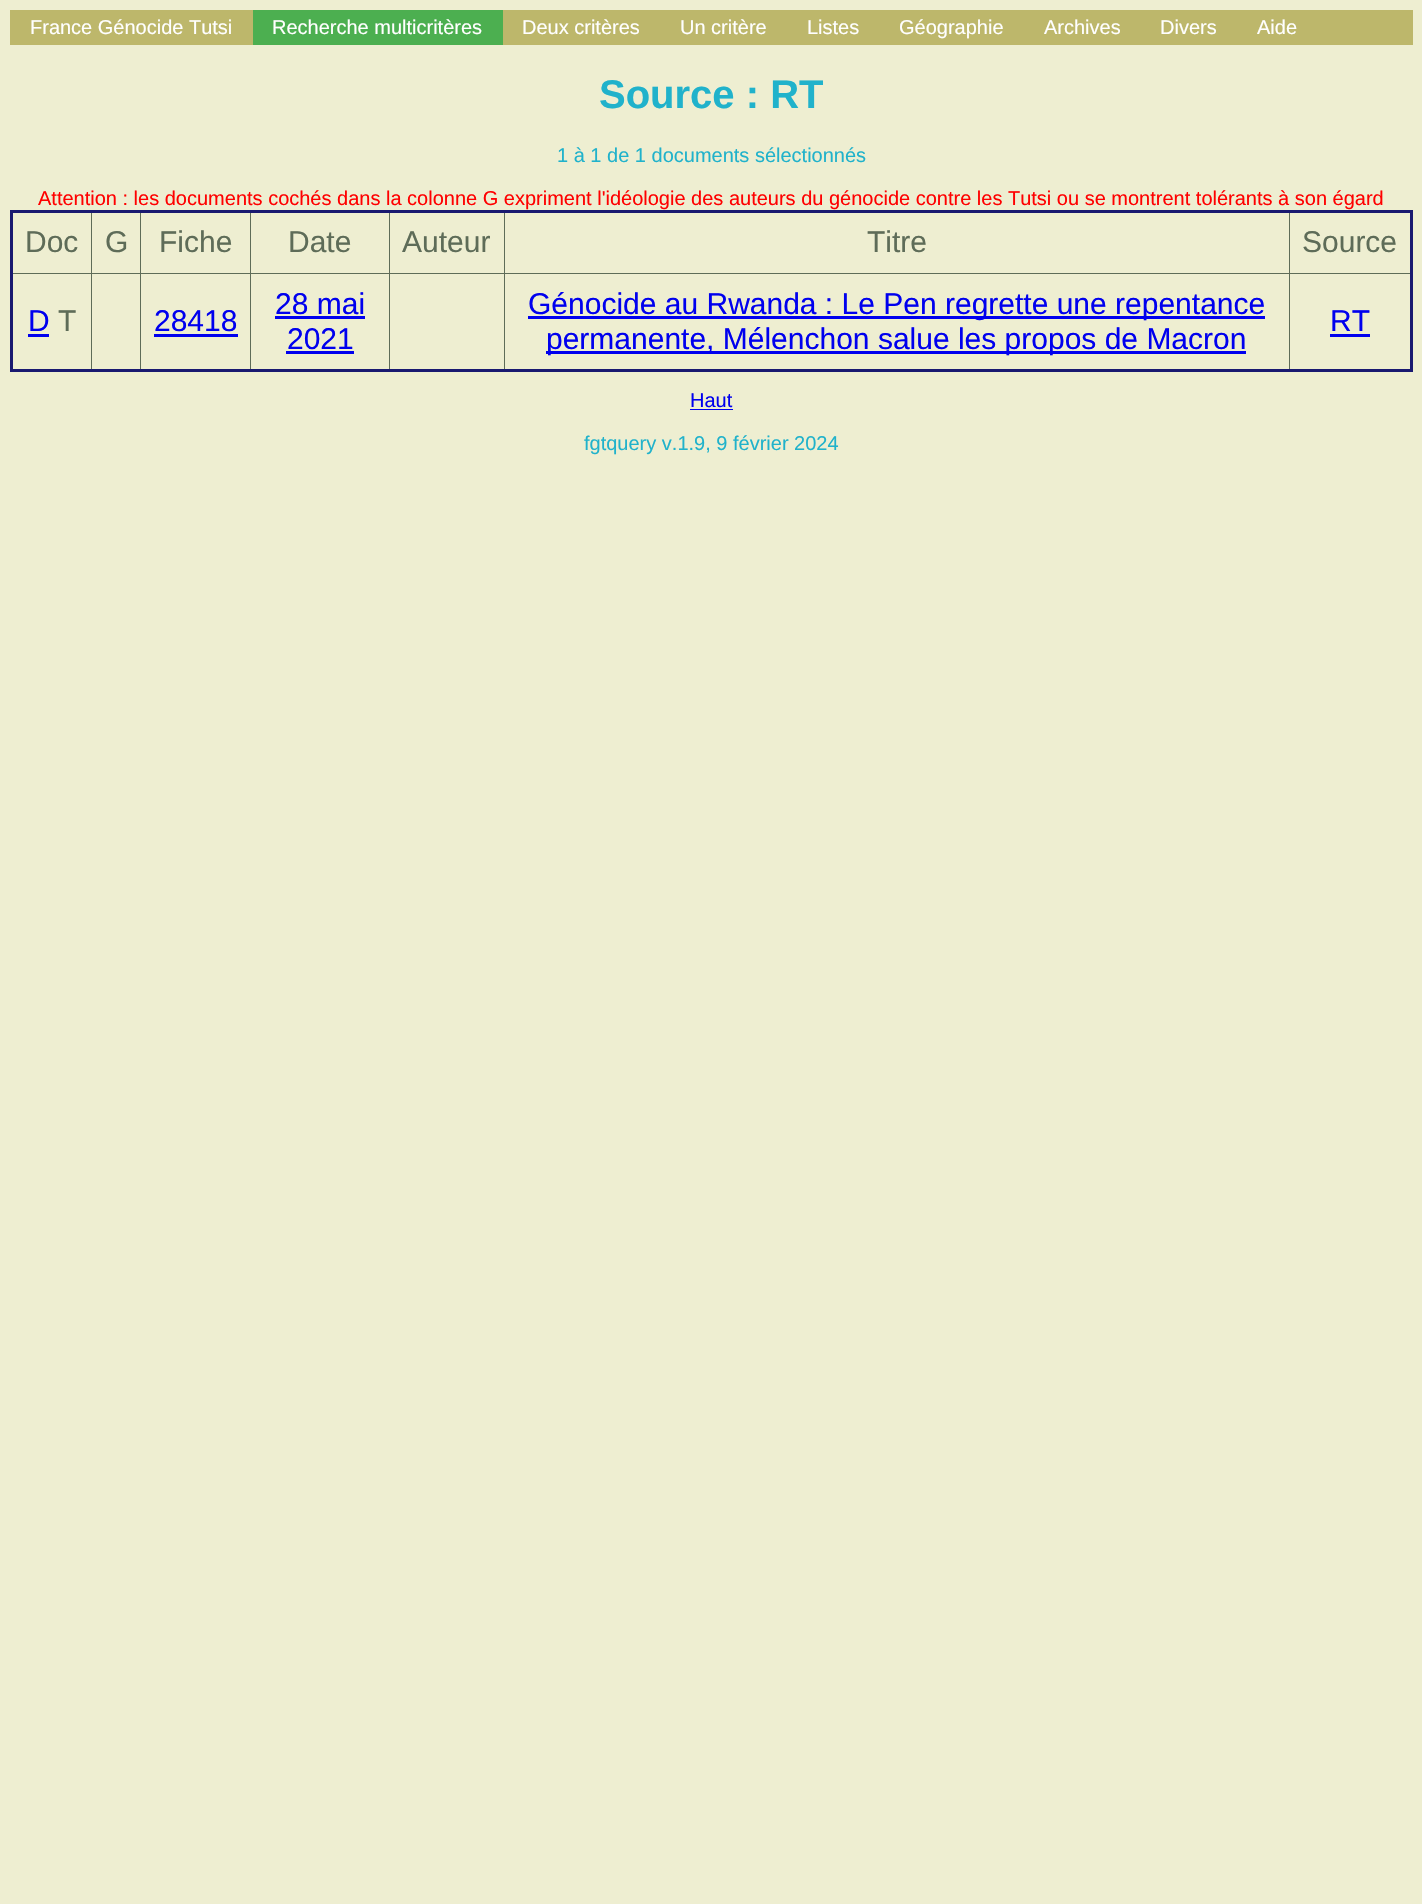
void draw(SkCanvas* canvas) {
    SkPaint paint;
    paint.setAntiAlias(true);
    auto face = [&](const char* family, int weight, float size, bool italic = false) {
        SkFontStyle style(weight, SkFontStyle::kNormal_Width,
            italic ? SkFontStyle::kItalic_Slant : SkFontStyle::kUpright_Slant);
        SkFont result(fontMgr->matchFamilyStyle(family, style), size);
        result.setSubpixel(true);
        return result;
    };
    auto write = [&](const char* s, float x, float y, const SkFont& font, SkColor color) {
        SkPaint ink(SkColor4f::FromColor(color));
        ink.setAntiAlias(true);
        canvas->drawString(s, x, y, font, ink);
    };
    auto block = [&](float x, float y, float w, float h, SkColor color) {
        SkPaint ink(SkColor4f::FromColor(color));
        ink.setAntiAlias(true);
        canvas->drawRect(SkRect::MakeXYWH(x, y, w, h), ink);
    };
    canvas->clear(SkColorSetRGB(238, 238, 209));
    block(10, 10, 1403, 35, SkColorSetRGB(189, 183, 107));
    auto kFont1 = face("Liberation Sans", 400, 20);
    write("France Génocide Tutsi", 30, 34, kFont1, SK_ColorWHITE);
    block(253, 10, 250, 35, SkColorSetRGB(76, 175, 80));
    write("Recherche multicritères", 272, 34, kFont1, SK_ColorWHITE);
    write("Deux critères", 522, 34, kFont1, SK_ColorWHITE);
    write("Un critère", 680, 34, kFont1, SK_ColorWHITE);
    write("Listes", 807, 34, kFont1, SK_ColorWHITE);
    write("Géographie", 899, 34, kFont1, SK_ColorWHITE);
    write("Archives", 1044, 34, kFont1, SK_ColorWHITE);
    write("Divers", 1160, 34, kFont1, SK_ColorWHITE);
    write("Aide", 1257, 34, kFont1, SK_ColorWHITE);
    auto kFont2 = face("Liberation Sans", 700, 40);
    write("Source : RT", 599, 108, kFont2, SkColorSetRGB(32, 178, 203));
    write("1 à 1 de 1 documents sélectionnés", 557, 162, kFont1, SkColorSetRGB(32, 178, 203));
    write("Attention : les documents cochés dans la colonne G expriment l'idéologie des auteurs du génocide contre les Tutsi ou se montrent tolérants à son égard", 38, 205, kFont1, SkColorSetRGB(255, 0, 0));
    block(11, 273, 1402, 1, SkColorSetRGB(94, 108, 88));
    block(91, 210, 1, 160, SkColorSetRGB(94, 108, 88));
    block(140, 210, 1, 160, SkColorSetRGB(94, 108, 88));
    block(250, 210, 1, 160, SkColorSetRGB(94, 108, 88));
    block(389, 210, 1, 160, SkColorSetRGB(94, 108, 88));
    block(504, 210, 1, 160, SkColorSetRGB(94, 108, 88));
    block(1289, 210, 1, 160, SkColorSetRGB(94, 108, 88));
    block(10, 210, 1403, 3, SkColorSetRGB(25, 25, 112));
    block(1410, 210, 3, 161, SkColorSetRGB(25, 25, 112));
    block(10, 369, 1403, 3, SkColorSetRGB(25, 25, 112));
    block(10, 210, 3, 161, SkColorSetRGB(25, 25, 112));
    auto kFont3 = face("Liberation Sans", 400, 30);
    write("Doc", 25, 252, kFont3, SkColorSetRGB(94, 108, 88));
    write("G", 105, 252, kFont3, SkColorSetRGB(94, 108, 88));
    write("Fiche", 159, 252, kFont3, SkColorSetRGB(94, 108, 88));
    write("Date", 288, 252, kFont3, SkColorSetRGB(94, 108, 88));
    write("Auteur", 402, 252, kFont3, SkColorSetRGB(94, 108, 88));
    write("Titre", 867, 252, kFont3, SkColorSetRGB(94, 108, 88));
    write("Source", 1302, 252, kFont3, SkColorSetRGB(94, 108, 88));
    write("D", 28, 331, kFont3, SkColorSetRGB(0, 0, 238));
    block(28, 334, 21, 3, SkColorSetRGB(0, 0, 238));
    write("T", 58, 331, kFont3, SkColorSetRGB(94, 108, 88));
    write("28418", 154, 331, kFont3, SkColorSetRGB(0, 0, 238));
    block(154, 334, 84, 3, SkColorSetRGB(0, 0, 238));
    write("28 mai", 275, 314, kFont3, SkColorSetRGB(0, 0, 238));
    block(275, 316, 90, 3, SkColorSetRGB(0, 0, 238));
    write("2021", 287, 349, kFont3, SkColorSetRGB(0, 0, 238));
    block(286, 351, 68, 3, SkColorSetRGB(0, 0, 238));
    block(528, 316, 737, 3, SkColorSetRGB(0, 0, 238));
    write("Génocide au Rwanda : Le Pen regrette une repentance", 528, 314, kFont3, SkColorSetRGB(0, 0, 238));
    block(546, 351, 700, 3, SkColorSetRGB(0, 0, 238));
    write("permanente, Mélenchon salue les propos de Macron", 546, 349, kFont3, SkColorSetRGB(0, 0, 238));
    write("RT", 1330, 331, kFont3, SkColorSetRGB(0, 0, 238));
    block(1330, 334, 40, 3, SkColorSetRGB(0, 0, 238));
    write("Haut", 690, 407, kFont1, SkColorSetRGB(0, 0, 238));
    block(690, 409, 43, 1, SkColorSetRGB(0, 0, 238));
    write("fgtquery v.1.9, 9 février 2024", 584, 450, kFont1, SkColorSetRGB(32, 178, 203));
}
